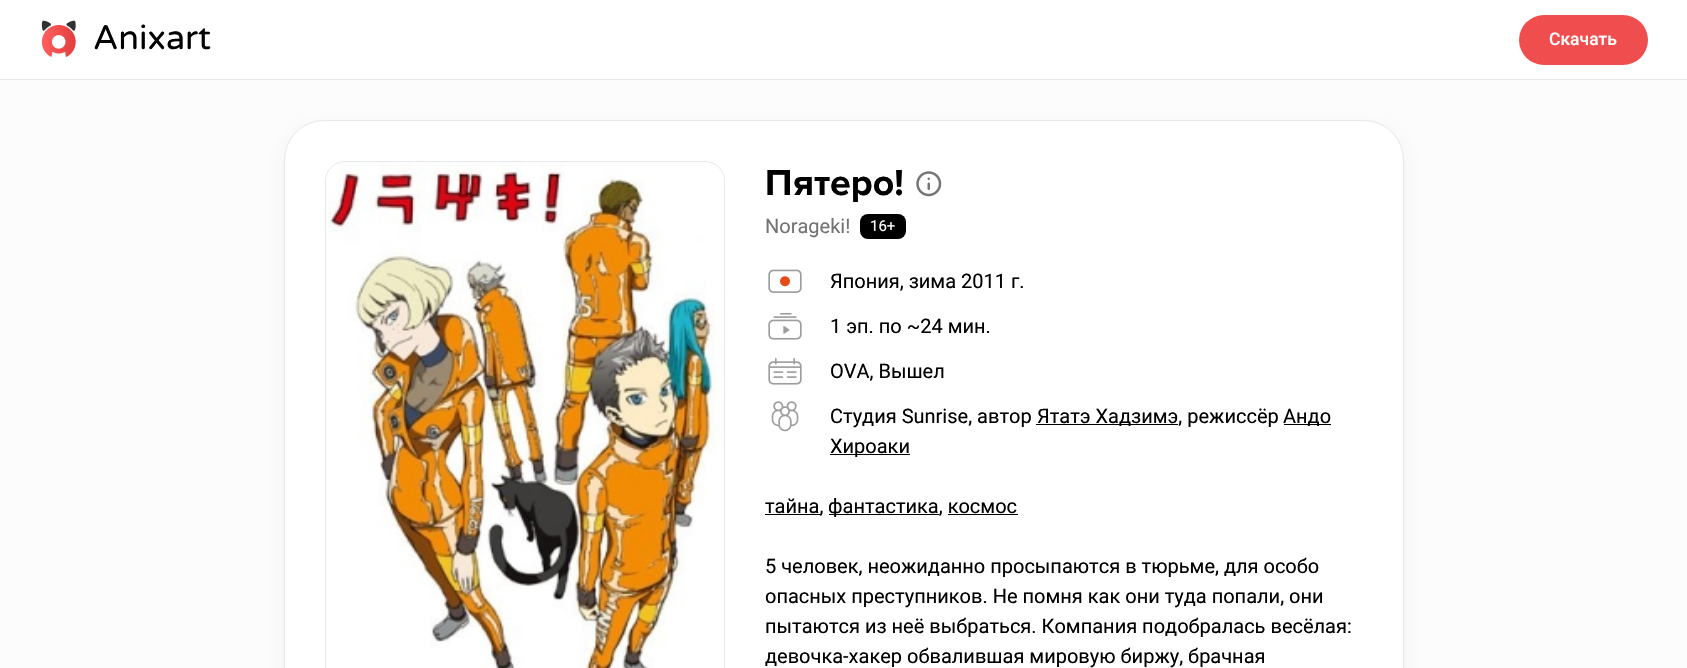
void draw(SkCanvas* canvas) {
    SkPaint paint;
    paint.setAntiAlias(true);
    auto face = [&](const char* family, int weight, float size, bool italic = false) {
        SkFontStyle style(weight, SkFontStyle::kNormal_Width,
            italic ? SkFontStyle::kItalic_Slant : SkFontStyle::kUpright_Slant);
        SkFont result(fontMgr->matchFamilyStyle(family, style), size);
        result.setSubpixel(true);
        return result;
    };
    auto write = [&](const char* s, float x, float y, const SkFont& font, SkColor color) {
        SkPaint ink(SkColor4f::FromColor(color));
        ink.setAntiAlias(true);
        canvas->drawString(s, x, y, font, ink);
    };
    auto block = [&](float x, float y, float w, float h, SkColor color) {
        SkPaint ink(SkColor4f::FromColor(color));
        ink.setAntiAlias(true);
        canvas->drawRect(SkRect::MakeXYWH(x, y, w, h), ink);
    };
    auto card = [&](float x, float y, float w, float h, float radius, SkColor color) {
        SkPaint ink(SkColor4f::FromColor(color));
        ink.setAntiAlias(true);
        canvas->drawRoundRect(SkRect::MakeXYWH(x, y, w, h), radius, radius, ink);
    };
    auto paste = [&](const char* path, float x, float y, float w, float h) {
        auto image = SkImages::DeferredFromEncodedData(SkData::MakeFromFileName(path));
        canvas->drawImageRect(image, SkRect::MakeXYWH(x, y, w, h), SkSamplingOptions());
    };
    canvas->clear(SkColorSetRGB(252, 252, 252));
    block(0, 0, 1687, 79, SK_ColorWHITE);
    block(0, 79, 1687, 1, SkColorSetRGB(229, 231, 235));
    paste("pic1.png", 41, 20, 35, 37);
    auto kFont1 = face("Varela Round", 400, 34);
    write("Anixart", 93, 49, kFont1, SK_ColorBLACK);
    card(1519, 15, 129, 50, 25, SkColorSetRGB(240, 78, 78));
    auto kFont2 = face("Roboto", 500, 17.5f);
    write("Скачать", 1549, 45, kFont2, SK_ColorWHITE);
    paint.setColor(SkColorSetARGB(13, 51, 51, 51));
    paint.setMaskFilter(SkMaskFilter::MakeBlur(kNormal_SkBlurStyle, 13));
    canvas->drawRoundRect(SkRect::MakeXYWH(284, 129, 1120, 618), 40, 40, paint);
    paint.setMaskFilter(nullptr);
    paint.setColor(SK_ColorWHITE);
    canvas->drawRoundRect(SkRect::MakeXYWH(284.5f, 120.5f, 1119, 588), 39.5f, 39.5f, paint);
    paint.setStyle(SkPaint::kStroke_Style);
    paint.setStrokeWidth(1);
    paint.setColor(SkColorSetRGB(229, 231, 235));
    canvas->drawRoundRect(SkRect::MakeXYWH(284.5f, 120.5f, 1119, 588), 39.5f, 39.5f, paint);
    canvas->drawRoundRect(SkRect::MakeXYWH(325.5f, 161.5f, 399, 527), 19.5f, 19.5f, paint);
    paste("pic2.png", 327, 163, 396, 505);
    auto kFont3 = face("Proxima Nova", 700, 37.5f);
    write("Пятеро!", 765, 195, kFont3, SK_ColorBLACK);
    paste("pic3.png", 916, 171, 26, 26);
    auto kFont4 = face("Roboto", 400, 20);
    write("Norageki!", 765, 233, kFont4, SkColorSetRGB(115, 115, 115));
    card(860, 214, 46, 25, 8, SK_ColorBLACK);
    auto kFont5 = face("Roboto", 400, 15);
    write("16+", 870, 231, kFont5, SK_ColorWHITE);
    paste("pic4.png", 768, 269, 34, 24);
    write("Япония, зима 2011 г.", 830, 288, kFont4, SK_ColorBLACK);
    paste("pic5.png", 768, 312, 34, 28);
    write("1 эп. по ~24 мин.", 830, 333, kFont4, SK_ColorBLACK);
    paste("pic6.png", 768, 358, 34, 27);
    write("OVA, Вышел", 830, 378, kFont4, SK_ColorBLACK);
    paste("pic7.png", 771, 401, 28, 31);
    write("Студия Sunrise, автор", 830, 423, kFont4, SK_ColorBLACK);
    block(1036, 424, 142, 1, SK_ColorBLACK);
    write("Ятатэ Хадзимэ, режиссёр", 1037, 423, kFont4, SK_ColorBLACK);
    block(1284, 424, 47, 1, SK_ColorBLACK);
    write("Андо", 1283, 423, kFont4, SK_ColorBLACK);
    block(830, 454, 80, 1, SK_ColorBLACK);
    write("Хироаки", 830, 453, kFont4, SK_ColorBLACK);
    block(765, 514, 55, 1, SK_ColorBLACK);
    write("тайна,", 765, 513, kFont4, SK_ColorBLACK);
    block(829, 514, 110, 1, SK_ColorBLACK);
    write("фантастика, космос", 828, 513, kFont4, SK_ColorBLACK);
    block(948, 514, 70, 1, SK_ColorBLACK);
    write("5 человек, неожиданно просыпаются в тюрьме, для особо", 765, 573, kFont4, SK_ColorBLACK);
    write("опасных преступников. Не помня как они туда попали, они", 765, 603, kFont4, SK_ColorBLACK);
    write("пытаются из неё выбраться. Компания подобралась весёлая:", 765, 633, kFont4, SK_ColorBLACK);
    write("девочка-хакер обвалившая мировую биржу, брачная", 765, 663, kFont4, SK_ColorBLACK);
}
